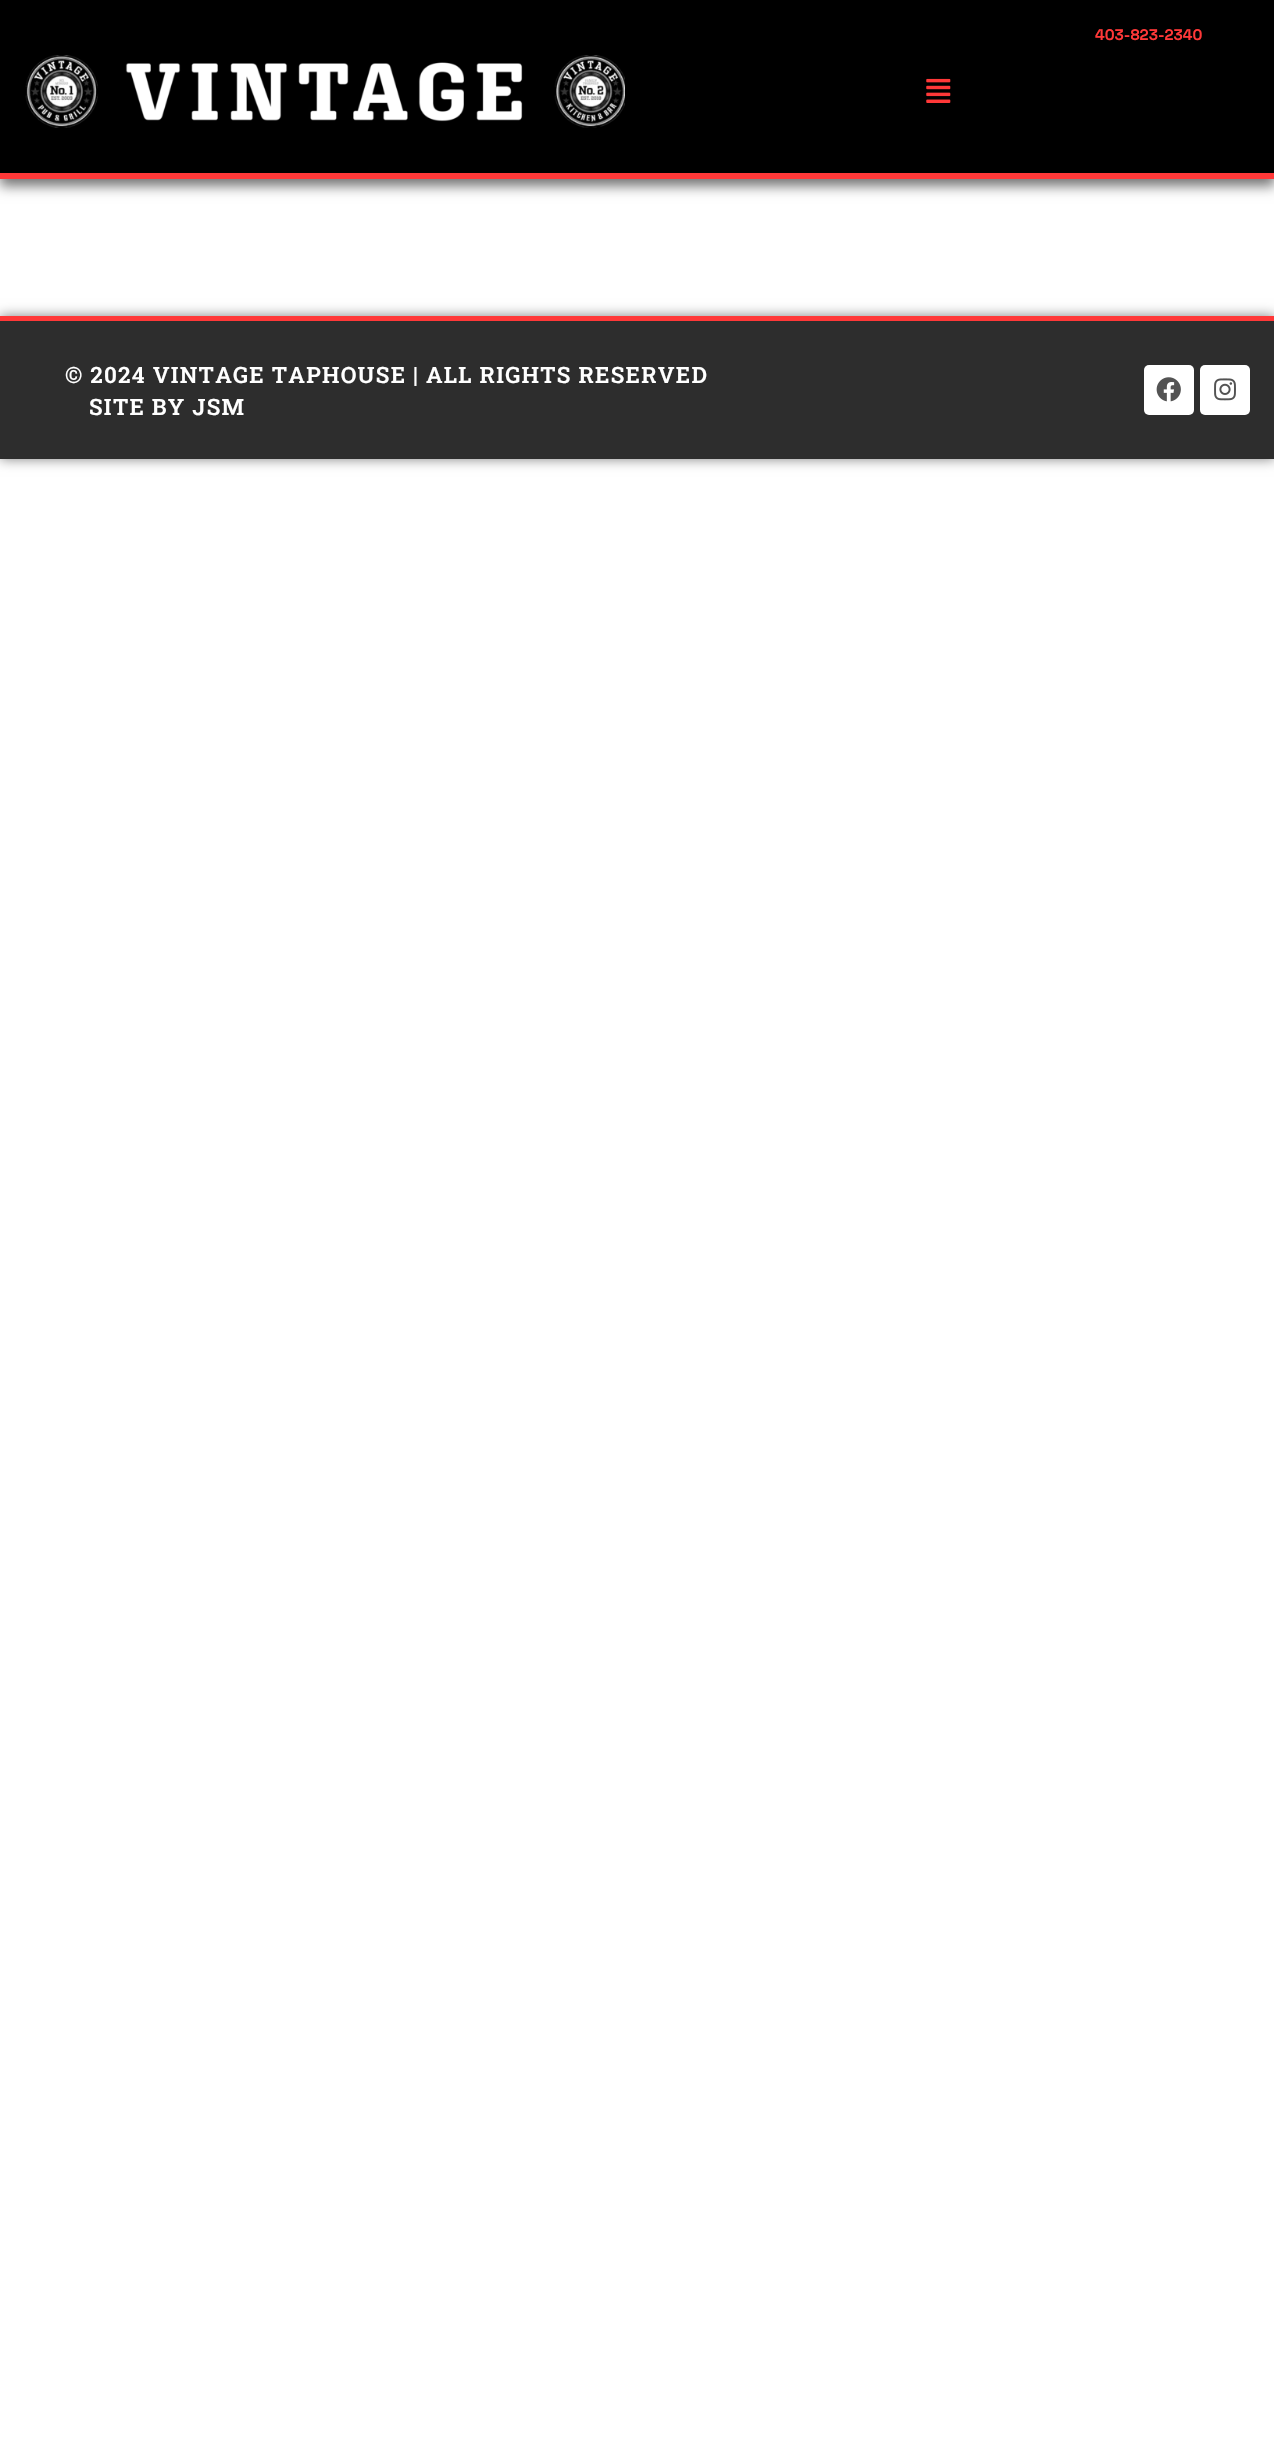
void draw(SkCanvas* canvas) {
    SkPaint paint;
    paint.setAntiAlias(true);
    auto face = [&](const char* family, int weight, float size, bool italic = false) {
        SkFontStyle style(weight, SkFontStyle::kNormal_Width,
            italic ? SkFontStyle::kItalic_Slant : SkFontStyle::kUpright_Slant);
        SkFont result(fontMgr->matchFamilyStyle(family, style), size);
        result.setSubpixel(true);
        return result;
    };
    auto write = [&](const char* s, float x, float y, const SkFont& font, SkColor color) {
        SkPaint ink(SkColor4f::FromColor(color));
        ink.setAntiAlias(true);
        canvas->drawString(s, x, y, font, ink);
    };
    auto writeSpaced = [&](const char* s, float x, float y, const SkFont& font, const SkPaint& ink, float letter, float word) {
        std::vector<SkGlyphID> glyphs(font.countText(s, strlen(s), SkTextEncoding::kUTF8));
        std::vector<float> xs(glyphs.size());
        font.textToGlyphs(s, strlen(s), SkTextEncoding::kUTF8, glyphs);
        font.getXPos(glyphs, xs, x);
        float extra = 0;
        for (size_t i = 0; i < glyphs.size(); i++) {
            xs[i] += extra;
            extra += letter + word * (glyphs[i] == font.unicharToGlyph(' '));
        }
        canvas->drawTextBlob(SkTextBlob::MakeFromPosHGlyphs(glyphs, xs, y, font), 0, 0, ink);
    };
    auto block = [&](float x, float y, float w, float h, SkColor color) {
        SkPaint ink(SkColor4f::FromColor(color));
        ink.setAntiAlias(true);
        canvas->drawRect(SkRect::MakeXYWH(x, y, w, h), ink);
    };
    auto card = [&](float x, float y, float w, float h, float radius, SkColor color) {
        SkPaint ink(SkColor4f::FromColor(color));
        ink.setAntiAlias(true);
        canvas->drawRoundRect(SkRect::MakeXYWH(x, y, w, h), radius, radius, ink);
    };
    auto paste = [&](const char* path, float x, float y, float w, float h) {
        auto image = SkImages::DeferredFromEncodedData(SkData::MakeFromFileName(path));
        canvas->drawImageRect(image, SkRect::MakeXYWH(x, y, w, h), SkSamplingOptions());
    };
    canvas->clear(SK_ColorWHITE);
    paint.setColor(SkColorSetARGB(140, 0, 0, 0));
    paint.setMaskFilter(SkMaskFilter::MakeBlur(kNormal_SkBlurStyle, 6));
    canvas->drawRect(SkRect::MakeXYWH(0, 8, 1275, 178), paint);
    paint.setMaskFilter(nullptr);
    block(0, 0, 1274, 173, SK_ColorBLACK);
    block(0, 173, 1274, 6, SkColorSetRGB(255, 56, 56));
    auto kFont1 = face("Space Grotesk", 700, 15.25f);
    write("403-823-2340", 1095, 40, kFont1, SkColorSetRGB(255, 56, 56));
    paste("pic1.png", 25, 55, 600, 73);
    paste("pic2.png", 926, 78, 25, 25);
    paint.setColor(SkColorSetARGB(128, 0, 0, 0));
    paint.setMaskFilter(SkMaskFilter::MakeBlur(kNormal_SkBlurStyle, 6));
    canvas->drawRect(SkRect::MakeXYWH(0, 316, 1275, 143), paint);
    paint.setMaskFilter(nullptr);
    block(0, 321, 1274, 138, SkColorSetRGB(45, 45, 45));
    block(0, 316, 1274, 5, SkColorSetRGB(255, 56, 56));
    auto kFont2 = face("Roboto Slab", 600, 22.5f);
    paint.setColor(SK_ColorWHITE);
    writeSpaced("© 2024 VINTAGE TAPHOUSE | ALL RIGHTS RESERVED", 65, 383, kFont2, paint, 1.25f, 0);
    writeSpaced("SITE BY JSM", 89, 415, kFont2, paint, 1.25f, 0);
    card(1144, 365, 50, 50, 5, SK_ColorWHITE);
    paste("pic3.png", 1156, 377, 25, 25);
    card(1200, 365, 50, 50, 5, SK_ColorWHITE);
    paste("pic4.png", 1214, 378, 22, 23);
}
